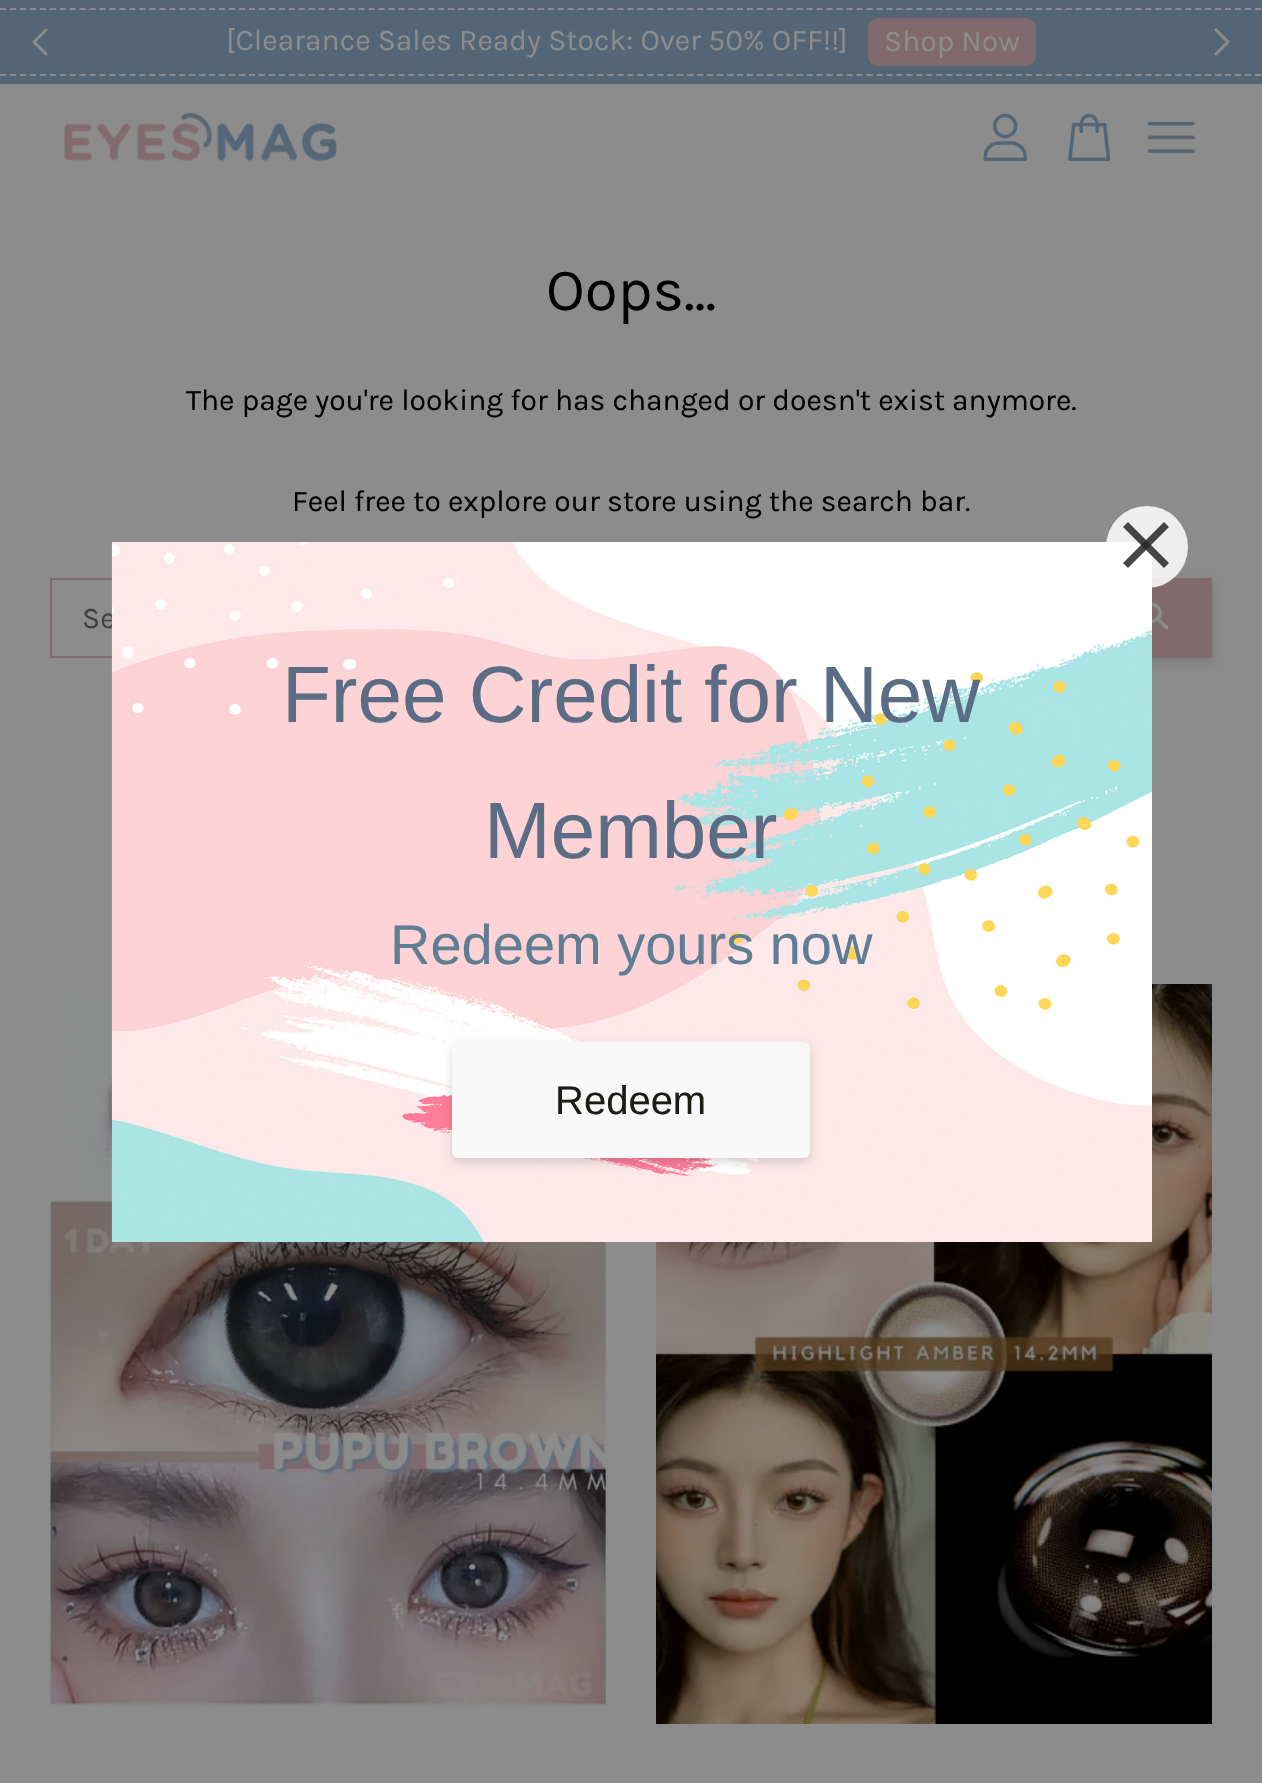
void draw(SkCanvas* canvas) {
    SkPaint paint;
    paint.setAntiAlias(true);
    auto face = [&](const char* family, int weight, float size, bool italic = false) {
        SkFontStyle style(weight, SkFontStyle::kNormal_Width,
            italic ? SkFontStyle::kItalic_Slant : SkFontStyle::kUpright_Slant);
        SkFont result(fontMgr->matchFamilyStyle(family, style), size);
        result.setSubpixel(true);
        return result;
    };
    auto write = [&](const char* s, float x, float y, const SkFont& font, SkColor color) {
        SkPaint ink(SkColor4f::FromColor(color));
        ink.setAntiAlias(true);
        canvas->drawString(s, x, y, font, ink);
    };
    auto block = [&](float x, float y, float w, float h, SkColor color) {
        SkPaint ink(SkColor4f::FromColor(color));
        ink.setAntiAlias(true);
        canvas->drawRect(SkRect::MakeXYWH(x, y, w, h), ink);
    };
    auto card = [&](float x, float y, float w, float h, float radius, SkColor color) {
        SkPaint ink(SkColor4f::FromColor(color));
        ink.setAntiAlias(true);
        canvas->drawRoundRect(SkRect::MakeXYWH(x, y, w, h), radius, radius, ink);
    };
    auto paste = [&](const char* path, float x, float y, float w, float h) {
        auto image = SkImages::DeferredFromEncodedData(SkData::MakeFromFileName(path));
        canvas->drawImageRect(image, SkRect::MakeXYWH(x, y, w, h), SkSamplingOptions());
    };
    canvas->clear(SkColorSetRGB(140, 140, 140));
    block(0, 0, 1262, 84, SkColorSetRGB(84, 102, 118));
    paint.setStyle(SkPaint::kStroke_Style);
    paint.setStrokeWidth(2);
    paint.setColor(SkColorSetRGB(140, 140, 140));
    paint.setPathEffect(SkDashPathEffect::Make({{6, 3.96f}}, 0));
    canvas->drawPath(SkPathBuilder().moveTo(0, 9).lineTo(1262, 9).detach(), paint);
    paint.setPathEffect(nullptr);
    paint.setPathEffect(SkDashPathEffect::Make({{6, 3.96f}}, 0));
    canvas->drawPath(SkPathBuilder().moveTo(0, 75).lineTo(1262, 75).detach(), paint);
    paint.setPathEffect(nullptr);
    paint.setStrokeWidth(3);
    paint.setStrokeCap(SkPaint::kRound_Cap);
    paint.setStrokeJoin(SkPaint::kRound_Join);
    canvas->drawPath(SkPathBuilder().moveTo(46, 30).lineTo(34, 42).lineTo(46, 54).detach(), paint);
    auto kFont1 = face("Karla", 400, 30);
    write("[Clearance Sales Ready Stock: Over 50% OFF!!]", 226, 50, kFont1, SkColorSetRGB(140, 140, 140));
    card(868, 18, 168, 48, 10, SkColorSetRGB(129, 106, 109));
    write("Shop Now", 884, 51, kFont1, SkColorSetRGB(140, 140, 140));
    canvas->drawPath(SkPathBuilder().moveTo(1216, 30).lineTo(1228, 42).lineTo(1216, 54).detach(), paint);
    paste("pic1.png", 64, 112, 273, 50);
    paste("pic2.png", 983, 113, 44, 49);
    paste("pic3.png", 1068, 113, 43, 49);
    paste("pic4.png", 1147, 121, 48, 32);
    auto kFont2 = face("Karla", 400, 60);
    write("Oops...", 546, 310, kFont2, SK_ColorBLACK);
    write("The page you're looking for has changed or doesn't exist anymore.", 186, 410, kFont1, SK_ColorBLACK);
    write("Feel free to explore our store using the search bar.", 292, 511, kFont1, SK_ColorBLACK);
    paint.setStrokeWidth(2);
    paint.setStrokeCap(SkPaint::kButt_Cap);
    paint.setStrokeJoin(SkPaint::kMiter_Join);
    paint.setColor(SkColorSetRGB(129, 106, 109));
    canvas->drawRect(SkRect::MakeXYWH(51, 579, 1046, 78), paint);
    write("Se", 82, 628, kFont1, SkColorSetRGB(64, 64, 64));
    paint.setStyle(SkPaint::kFill_Style);
    paint.setColor(SkColorSetARGB(38, 0, 0, 0));
    paint.setMaskFilter(SkMaskFilter::MakeBlur(kNormal_SkBlurStyle, 5));
    canvas->drawRect(SkRect::MakeXYWH(1098, 582, 114, 80), paint);
    paint.setMaskFilter(nullptr);
    block(1152, 578, 60, 80, SkColorSetRGB(129, 106, 109));
    paste("pic5.png", 1152, 602, 17, 28);
    paste("pic6.png", 50, 991, 556, 716);
    paste("pic7.png", 656, 984, 556, 740);
    paste("pic8.png", 111, 542, 1041, 700);
    paint.setColor(SkColorSetARGB(217, 255, 255, 255));
    canvas->drawCircle(1147, 547, 41, paint);
    paint.setColor(SkColorSetARGB(217, 38, 38, 38));
    canvas->drawPath(SkPathBuilder().moveTo(1164, 522).lineTo(1169, 527).lineTo(1128, 568).lineTo(1123, 563).close().detach(), paint);
    canvas->drawPath(SkPathBuilder().moveTo(1123, 527).lineTo(1128, 522).lineTo(1169, 563).lineTo(1164, 568).close().detach(), paint);
    auto kFont3 = face("Liberation Sans", 400, 80);
    write("Free Credit for New", 282, 722, kFont3, SkColorSetRGB(90, 109, 133));
    write("Member", 484, 858, kFont3, SkColorSetRGB(90, 109, 133));
    auto kFont4 = face("Liberation Sans", 400, 56);
    write("Redeem yours now", 390, 964, kFont4, SkColorSetRGB(96, 126, 147));
    paint.setColor(SkColorSetARGB(38, 0, 0, 0));
    paint.setMaskFilter(SkMaskFilter::MakeBlur(kNormal_SkBlurStyle, 5));
    canvas->drawRoundRect(SkRect::MakeXYWH(452, 1046, 358, 116), 6, 6, paint);
    paint.setMaskFilter(nullptr);
    card(452, 1042, 358, 116, 6, SkColorSetRGB(248, 248, 248));
    auto kFont5 = face("Liberation Sans", 400, 40);
    write("Redeem", 555, 1114, kFont5, SkColorSetRGB(30, 28, 23));
}
